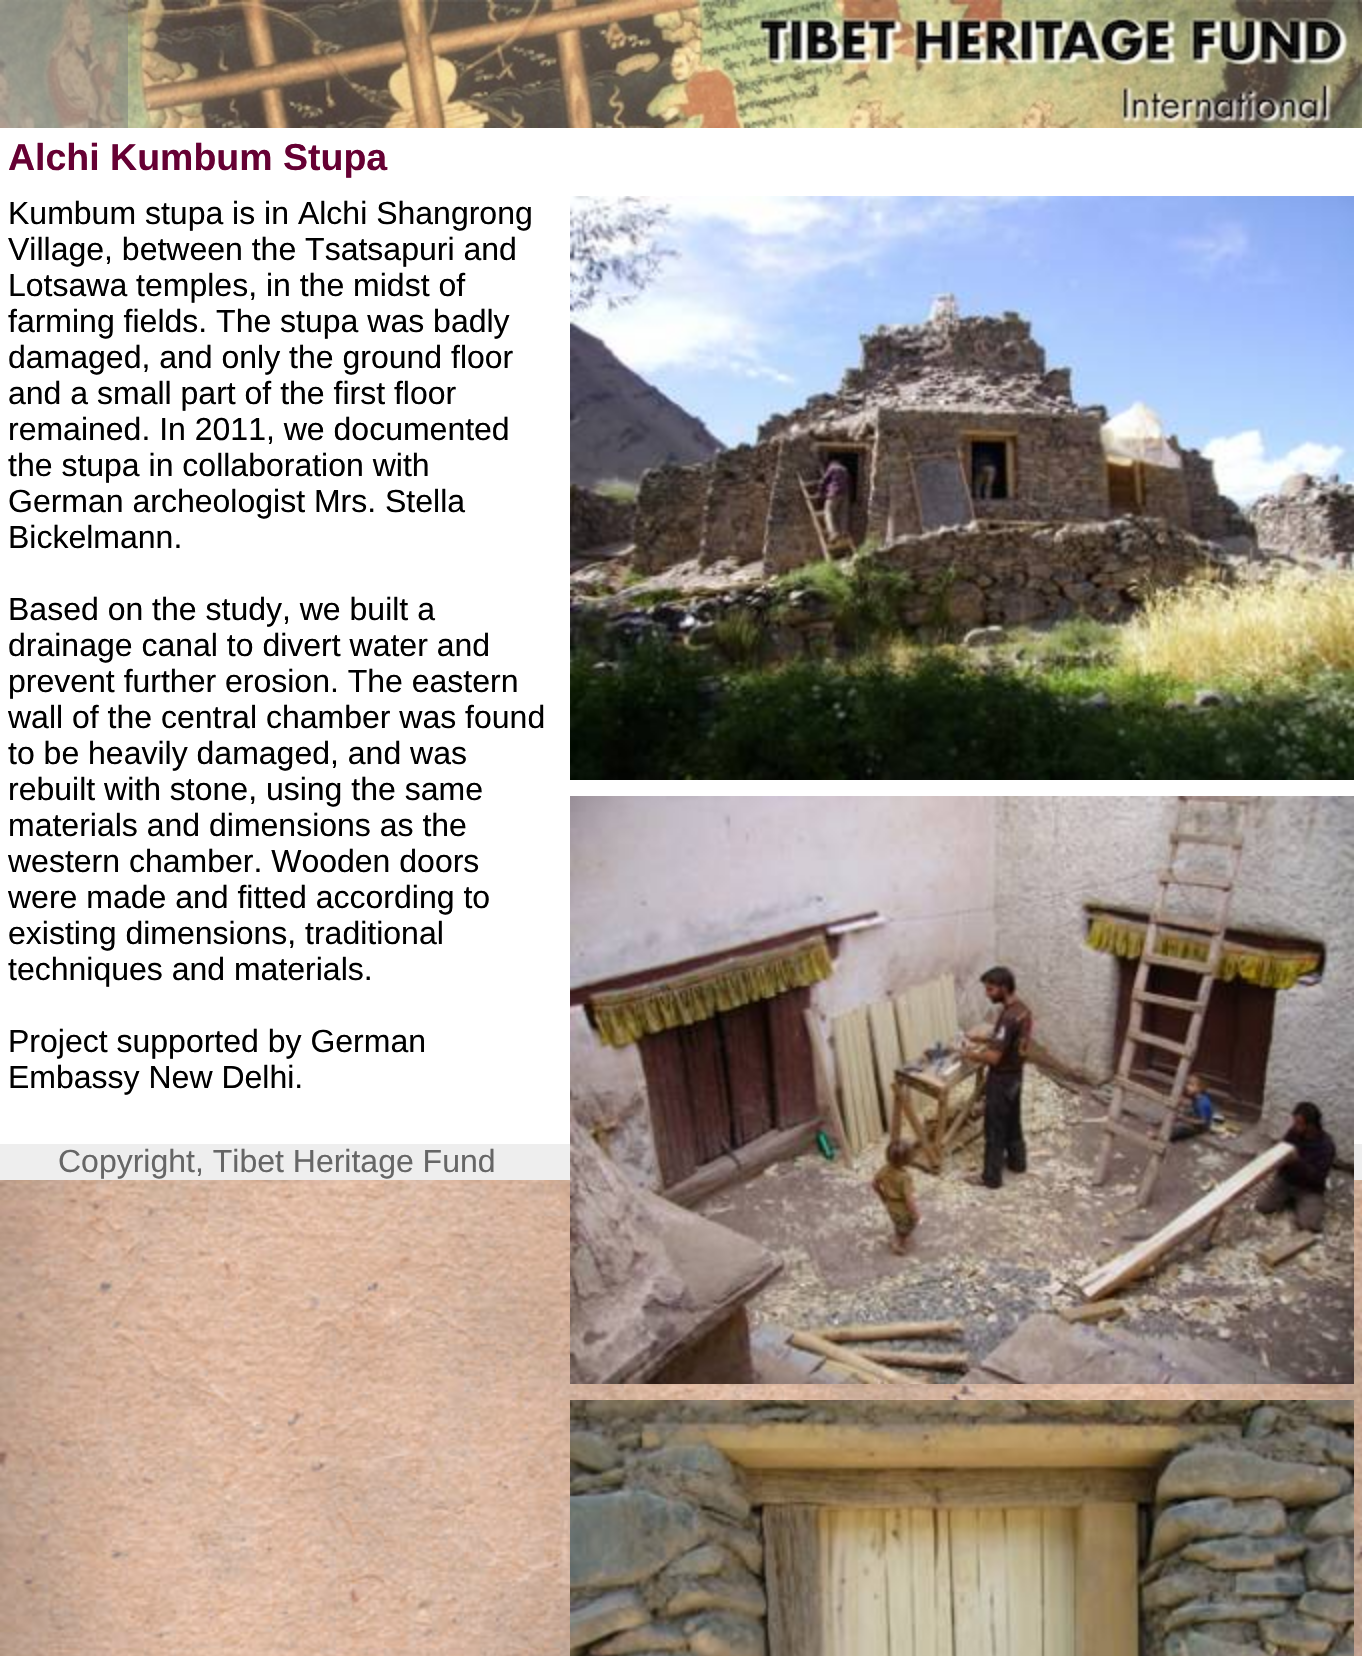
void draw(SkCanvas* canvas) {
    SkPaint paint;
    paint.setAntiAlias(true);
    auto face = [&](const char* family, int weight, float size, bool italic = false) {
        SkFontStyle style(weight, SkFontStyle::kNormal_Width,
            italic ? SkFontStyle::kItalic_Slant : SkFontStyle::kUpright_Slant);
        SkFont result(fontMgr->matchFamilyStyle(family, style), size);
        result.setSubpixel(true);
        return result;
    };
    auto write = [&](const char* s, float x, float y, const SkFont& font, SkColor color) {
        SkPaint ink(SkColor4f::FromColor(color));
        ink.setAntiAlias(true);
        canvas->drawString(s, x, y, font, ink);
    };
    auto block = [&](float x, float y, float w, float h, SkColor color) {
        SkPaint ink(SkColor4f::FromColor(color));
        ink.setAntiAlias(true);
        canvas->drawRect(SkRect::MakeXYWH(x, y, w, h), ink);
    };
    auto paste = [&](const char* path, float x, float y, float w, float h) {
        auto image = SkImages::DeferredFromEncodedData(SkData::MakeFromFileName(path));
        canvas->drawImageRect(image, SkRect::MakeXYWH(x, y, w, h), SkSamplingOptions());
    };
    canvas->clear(SK_ColorWHITE);
    paste("pic1.png", 0, 1180, 1362, 476);
    paste("pic2.png", 0, 0, 1362, 128);
    block(0, 0, 128, 128, SkColorSetARGB(128, 128, 128, 128));
    auto kFont1 = face("Liberation Sans", 700, 37.5f);
    write("Alchi Kumbum Stupa", 8, 170, kFont1, SkColorSetRGB(102, 0, 51));
    auto kFont2 = face("Liberation Sans", 400, 32);
    write("Kumbum stupa is in Alchi Shangrong", 8, 224, kFont2, SK_ColorBLACK);
    paste("pic3.png", 570, 196, 784, 584);
    write("Village, between the Tsatsapuri and", 8, 260, kFont2, SK_ColorBLACK);
    write("Lotsawa temples, in the midst of", 8, 296, kFont2, SK_ColorBLACK);
    write("farming fields. The stupa was badly", 8, 332, kFont2, SK_ColorBLACK);
    write("damaged, and only the ground floor", 8, 368, kFont2, SK_ColorBLACK);
    write("and a small part of the first floor", 8, 404, kFont2, SK_ColorBLACK);
    write("remained. In 2011, we documented", 8, 440, kFont2, SK_ColorBLACK);
    write("the stupa in collaboration with", 8, 476, kFont2, SK_ColorBLACK);
    write("German archeologist Mrs. Stella", 8, 512, kFont2, SK_ColorBLACK);
    write("Bickelmann.", 8, 548, kFont2, SK_ColorBLACK);
    write("Based on the study, we built a", 8, 620, kFont2, SK_ColorBLACK);
    write("drainage canal to divert water and", 8, 656, kFont2, SK_ColorBLACK);
    write("prevent further erosion. The eastern", 8, 692, kFont2, SK_ColorBLACK);
    write("wall of the central chamber was found", 8, 728, kFont2, SK_ColorBLACK);
    write("to be heavily damaged, and was", 8, 764, kFont2, SK_ColorBLACK);
    write("rebuilt with stone, using the same", 8, 800, kFont2, SK_ColorBLACK);
    write("materials and dimensions as the", 8, 836, kFont2, SK_ColorBLACK);
    block(0, 1144, 1362, 36, SkColorSetRGB(238, 238, 238));
    paste("pic4.png", 570, 796, 784, 588);
    write("western chamber. Wooden doors", 8, 872, kFont2, SK_ColorBLACK);
    write("were made and fitted according to", 8, 908, kFont2, SK_ColorBLACK);
    write("existing dimensions, traditional", 8, 944, kFont2, SK_ColorBLACK);
    write("techniques and materials.", 8, 980, kFont2, SK_ColorBLACK);
    write("Project supported by German", 8, 1052, kFont2, SK_ColorBLACK);
    write("Embassy New Delhi.", 8, 1088, kFont2, SK_ColorBLACK);
    paste("pic5.png", 570, 1400, 784, 256);
    write("Copyright, Tibet Heritage Fund", 58, 1172, kFont2, SkColorSetRGB(102, 102, 102));
}
